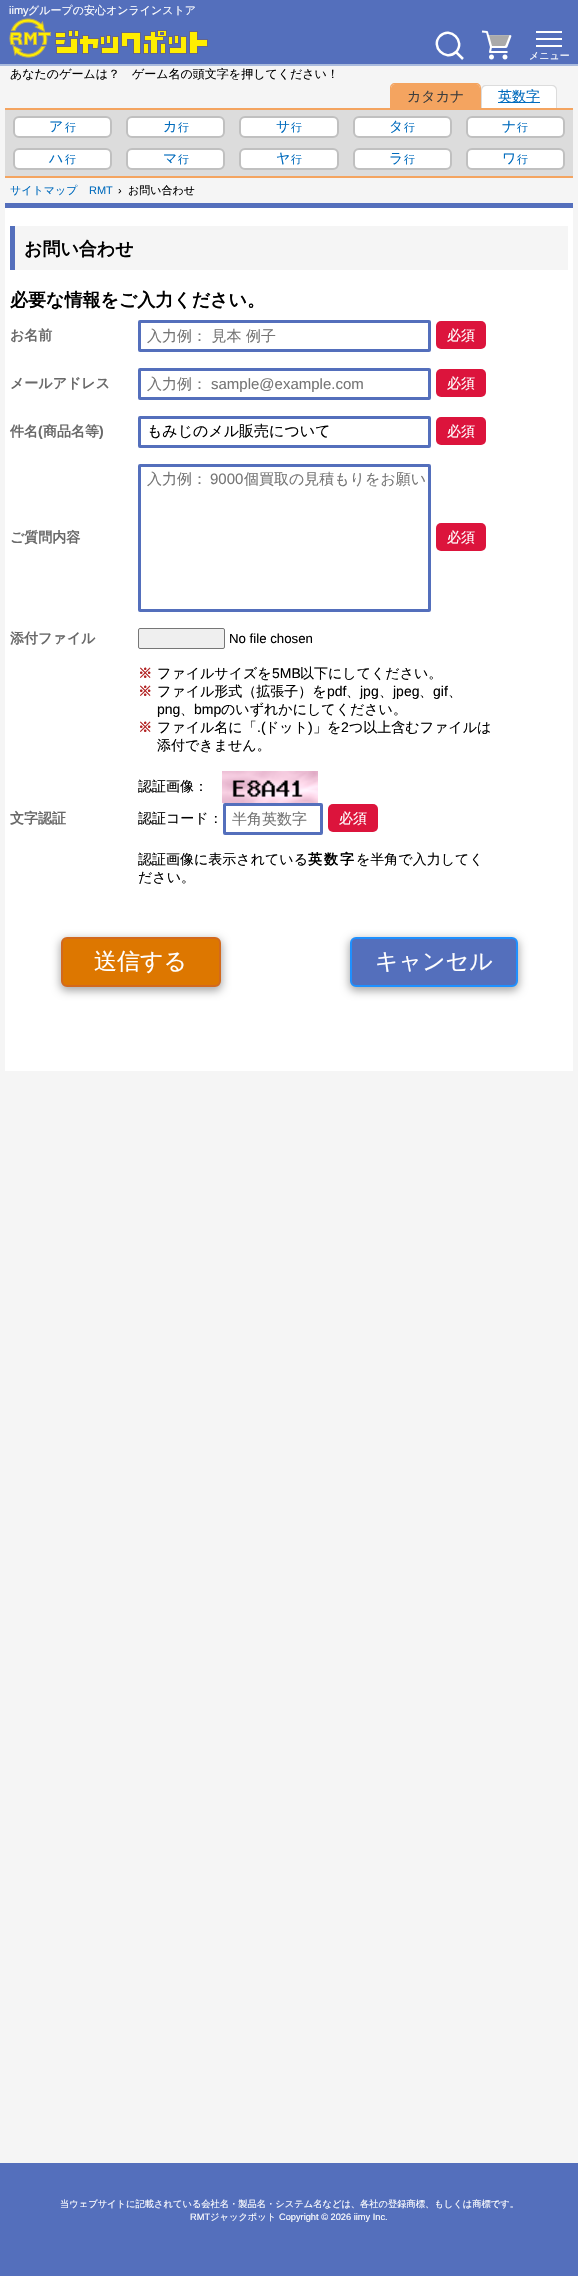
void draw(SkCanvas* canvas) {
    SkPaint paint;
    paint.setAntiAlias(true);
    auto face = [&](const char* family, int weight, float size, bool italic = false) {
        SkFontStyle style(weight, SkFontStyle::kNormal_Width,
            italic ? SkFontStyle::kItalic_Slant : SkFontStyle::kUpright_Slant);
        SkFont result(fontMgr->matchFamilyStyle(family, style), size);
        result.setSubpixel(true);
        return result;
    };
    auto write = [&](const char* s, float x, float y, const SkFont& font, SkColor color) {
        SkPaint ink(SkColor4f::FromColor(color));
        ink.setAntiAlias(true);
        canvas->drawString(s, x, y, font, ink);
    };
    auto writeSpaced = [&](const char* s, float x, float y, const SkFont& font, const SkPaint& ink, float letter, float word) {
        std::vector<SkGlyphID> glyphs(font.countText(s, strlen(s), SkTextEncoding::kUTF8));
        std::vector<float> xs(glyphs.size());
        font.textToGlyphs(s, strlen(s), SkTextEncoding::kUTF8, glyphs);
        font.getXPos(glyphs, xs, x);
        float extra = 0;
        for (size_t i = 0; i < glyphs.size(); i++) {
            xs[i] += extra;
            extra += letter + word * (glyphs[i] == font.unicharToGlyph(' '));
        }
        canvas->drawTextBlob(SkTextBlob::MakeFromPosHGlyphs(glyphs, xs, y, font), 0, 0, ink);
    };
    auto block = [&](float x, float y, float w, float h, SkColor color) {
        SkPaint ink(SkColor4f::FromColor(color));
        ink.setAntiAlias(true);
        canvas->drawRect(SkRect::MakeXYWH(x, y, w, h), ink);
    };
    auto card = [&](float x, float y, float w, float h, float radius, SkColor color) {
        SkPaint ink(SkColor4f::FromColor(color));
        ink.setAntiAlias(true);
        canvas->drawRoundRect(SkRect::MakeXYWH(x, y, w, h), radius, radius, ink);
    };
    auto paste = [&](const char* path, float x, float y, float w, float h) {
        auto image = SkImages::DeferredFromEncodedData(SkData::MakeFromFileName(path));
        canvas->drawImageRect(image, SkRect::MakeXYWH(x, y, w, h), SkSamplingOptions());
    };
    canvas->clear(SkColorSetRGB(245, 245, 245));
    block(0, 0, 578, 64, SkColorSetRGB(84, 111, 188));
    block(0, 64, 578, 2, SkColorSetRGB(170, 187, 221));
    auto kFont1 = face("Liberation Sans", 400, 11);
    write("iimy", 9, 14, kFont1, SK_ColorWHITE);
    auto kFont2 = face("WenQuanYi Zen Hei", 500, 11);
    write("グループの安心オンラインストア", 28, 14, kFont2, SK_ColorWHITE);
    paste("pic1.png", 9, 18, 199, 40);
    paint.setStyle(SkPaint::kStroke_Style);
    paint.setStrokeWidth(2.5f);
    paint.setColor(SK_ColorWHITE);
    canvas->drawPath(SkPathBuilder().moveTo(463, 59).lineTo(456, 52).cubicTo(445.5f, 62, 430, 46.5f, 440, 36).cubicTo(450.5f, 26, 466, 41.5f, 456, 52).detach(), paint);
    paste("pic2.png", 481, 30, 31, 30);
    block(536, 31, 26, 2, SK_ColorWHITE);
    block(536, 38, 26, 2, SK_ColorWHITE);
    block(536, 45, 26, 2, SK_ColorWHITE);
    auto kFont3 = face("WenQuanYi Zen Hei", 500, 10);
    write("メニュー", 529, 59, kFont3, SK_ColorWHITE);
    auto kFont4 = face("WenQuanYi Zen Hei", 500, 12);
    write("あなたのゲームは？", 10, 78, kFont4, SK_ColorBLACK);
    write("ゲーム名の頭文字を押してください！", 132, 78, kFont4, SK_ColorBLACK);
    paint.setStyle(SkPaint::kFill_Style);
    paint.setColor(SkColorSetRGB(244, 164, 96));
    canvas->drawPath(SkPathBuilder().moveTo(395, 84).lineTo(476, 84).cubicTo(478, 84, 480, 86, 480, 88).lineTo(480, 108).lineTo(391, 108).lineTo(391, 88).cubicTo(391, 86, 393, 84, 395, 84).close().detach(), paint);
    canvas->drawPath(SkPathBuilder(SkPathFillType::kEvenOdd).moveTo(395, 83).lineTo(476, 83).cubicTo(479, 83, 481, 85, 481, 88).lineTo(481, 108).lineTo(390, 108).lineTo(390, 88).cubicTo(390, 85, 392, 83, 395, 83).close().moveTo(395, 84).lineTo(476, 84).cubicTo(478, 84, 480, 86, 480, 88).lineTo(480, 108).lineTo(391, 108).lineTo(391, 88).cubicTo(391, 86, 393, 84, 395, 84).close().detach(), paint);
    auto kFont5 = face("WenQuanYi Zen Hei", 500, 14);
    write("カタカナ", 407, 101, kFont5, SkColorSetRGB(61, 61, 61));
    paint.setColor(SK_ColorWHITE);
    canvas->drawPath(SkPathBuilder().moveTo(486, 86).lineTo(552, 86).cubicTo(554, 86, 556, 88, 556, 90).lineTo(556, 108).lineTo(482, 108).lineTo(482, 90).cubicTo(482, 88, 484, 86, 486, 86).close().detach(), paint);
    paint.setColor(SkColorSetRGB(220, 220, 220));
    canvas->drawPath(SkPathBuilder(SkPathFillType::kEvenOdd).moveTo(486, 85).lineTo(552, 85).cubicTo(555, 85, 557, 87, 557, 90).lineTo(557, 108).lineTo(481, 108).lineTo(481, 90).cubicTo(481, 87, 483, 85, 486, 85).close().moveTo(486, 86).lineTo(552, 86).cubicTo(554, 86, 556, 88, 556, 90).lineTo(556, 108).lineTo(482, 108).lineTo(482, 90).cubicTo(482, 88, 484, 86, 486, 86).close().detach(), paint);
    block(498, 102, 42, 1, SkColorSetRGB(0, 107, 189));
    write("英数字", 498, 101, kFont5, SkColorSetRGB(0, 107, 189));
    block(5, 108, 568, 2, SkColorSetRGB(244, 164, 96));
    block(5, 176, 568, 2, SkColorSetRGB(244, 164, 96));
    block(5, 110, 568, 66, SkColorSetRGB(220, 220, 220));
    paint.setColor(SK_ColorWHITE);
    canvas->drawRoundRect(SkRect::MakeXYWH(14, 117, 97, 20), 5, 5, paint);
    paint.setStyle(SkPaint::kStroke_Style);
    paint.setStrokeWidth(2);
    paint.setColor(SkColorSetRGB(192, 192, 192));
    canvas->drawRoundRect(SkRect::MakeXYWH(14, 117, 97, 20), 5, 5, paint);
    write("ア", 49, 131, kFont5, SkColorSetRGB(0, 107, 189));
    write("行", 65, 131, kFont2, SkColorSetRGB(0, 107, 189));
    paint.setStyle(SkPaint::kFill_Style);
    paint.setColor(SK_ColorWHITE);
    canvas->drawRoundRect(SkRect::MakeXYWH(127, 117, 97, 20), 5, 5, paint);
    paint.setStyle(SkPaint::kStroke_Style);
    paint.setColor(SkColorSetRGB(192, 192, 192));
    canvas->drawRoundRect(SkRect::MakeXYWH(127, 117, 97, 20), 5, 5, paint);
    write("カ", 163, 131, kFont5, SkColorSetRGB(0, 107, 189));
    write("行", 178, 131, kFont2, SkColorSetRGB(0, 107, 189));
    paint.setStyle(SkPaint::kFill_Style);
    paint.setColor(SK_ColorWHITE);
    canvas->drawRoundRect(SkRect::MakeXYWH(240, 117, 98, 20), 5, 5, paint);
    paint.setStyle(SkPaint::kStroke_Style);
    paint.setColor(SkColorSetRGB(192, 192, 192));
    canvas->drawRoundRect(SkRect::MakeXYWH(240, 117, 98, 20), 5, 5, paint);
    write("サ", 276, 131, kFont5, SkColorSetRGB(0, 107, 189));
    write("行", 291, 131, kFont2, SkColorSetRGB(0, 107, 189));
    paint.setStyle(SkPaint::kFill_Style);
    paint.setColor(SK_ColorWHITE);
    canvas->drawRoundRect(SkRect::MakeXYWH(354, 117, 97, 20), 5, 5, paint);
    paint.setStyle(SkPaint::kStroke_Style);
    paint.setColor(SkColorSetRGB(192, 192, 192));
    canvas->drawRoundRect(SkRect::MakeXYWH(354, 117, 97, 20), 5, 5, paint);
    write("タ", 389, 131, kFont5, SkColorSetRGB(0, 107, 189));
    write("行", 404, 131, kFont2, SkColorSetRGB(0, 107, 189));
    paint.setStyle(SkPaint::kFill_Style);
    paint.setColor(SK_ColorWHITE);
    canvas->drawRoundRect(SkRect::MakeXYWH(467, 117, 97, 20), 5, 5, paint);
    paint.setStyle(SkPaint::kStroke_Style);
    paint.setColor(SkColorSetRGB(192, 192, 192));
    canvas->drawRoundRect(SkRect::MakeXYWH(467, 117, 97, 20), 5, 5, paint);
    write("ナ", 502, 131, kFont5, SkColorSetRGB(0, 107, 189));
    write("行", 517, 131, kFont2, SkColorSetRGB(0, 107, 189));
    paint.setStyle(SkPaint::kFill_Style);
    paint.setColor(SK_ColorWHITE);
    canvas->drawRoundRect(SkRect::MakeXYWH(14, 149, 97, 20), 5, 5, paint);
    paint.setStyle(SkPaint::kStroke_Style);
    paint.setColor(SkColorSetRGB(192, 192, 192));
    canvas->drawRoundRect(SkRect::MakeXYWH(14, 149, 97, 20), 5, 5, paint);
    write("ハ", 49, 163, kFont5, SkColorSetRGB(0, 107, 189));
    write("行", 65, 163, kFont2, SkColorSetRGB(0, 107, 189));
    paint.setStyle(SkPaint::kFill_Style);
    paint.setColor(SK_ColorWHITE);
    canvas->drawRoundRect(SkRect::MakeXYWH(127, 149, 97, 20), 5, 5, paint);
    paint.setStyle(SkPaint::kStroke_Style);
    paint.setColor(SkColorSetRGB(192, 192, 192));
    canvas->drawRoundRect(SkRect::MakeXYWH(127, 149, 97, 20), 5, 5, paint);
    write("マ", 163, 163, kFont5, SkColorSetRGB(0, 107, 189));
    write("行", 178, 163, kFont2, SkColorSetRGB(0, 107, 189));
    paint.setStyle(SkPaint::kFill_Style);
    paint.setColor(SK_ColorWHITE);
    canvas->drawRoundRect(SkRect::MakeXYWH(240, 149, 98, 20), 5, 5, paint);
    paint.setStyle(SkPaint::kStroke_Style);
    paint.setColor(SkColorSetRGB(192, 192, 192));
    canvas->drawRoundRect(SkRect::MakeXYWH(240, 149, 98, 20), 5, 5, paint);
    write("ヤ", 276, 163, kFont5, SkColorSetRGB(0, 107, 189));
    write("行", 291, 163, kFont2, SkColorSetRGB(0, 107, 189));
    paint.setStyle(SkPaint::kFill_Style);
    paint.setColor(SK_ColorWHITE);
    canvas->drawRoundRect(SkRect::MakeXYWH(354, 149, 97, 20), 5, 5, paint);
    paint.setStyle(SkPaint::kStroke_Style);
    paint.setColor(SkColorSetRGB(192, 192, 192));
    canvas->drawRoundRect(SkRect::MakeXYWH(354, 149, 97, 20), 5, 5, paint);
    write("ラ", 389, 163, kFont5, SkColorSetRGB(0, 107, 189));
    write("行", 404, 163, kFont2, SkColorSetRGB(0, 107, 189));
    paint.setStyle(SkPaint::kFill_Style);
    paint.setColor(SK_ColorWHITE);
    canvas->drawRoundRect(SkRect::MakeXYWH(467, 149, 97, 20), 5, 5, paint);
    paint.setStyle(SkPaint::kStroke_Style);
    paint.setColor(SkColorSetRGB(192, 192, 192));
    canvas->drawRoundRect(SkRect::MakeXYWH(467, 149, 97, 20), 5, 5, paint);
    write("ワ", 502, 163, kFont5, SkColorSetRGB(0, 107, 189));
    write("行", 517, 163, kFont2, SkColorSetRGB(0, 107, 189));
    write("サイトマップ", 10, 194, kFont2, SkColorSetRGB(0, 107, 189));
    write("RMT", 89, 194, kFont1, SkColorSetRGB(0, 107, 189));
    write("›", 118, 194, kFont1, SK_ColorBLACK);
    write("お問い合わせ", 128, 194, kFont2, SK_ColorBLACK);
    block(5, 208, 568, 863, SK_ColorWHITE);
    block(5, 203, 568, 5, SkColorSetRGB(84, 111, 188));
    block(15, 226, 553, 44, SkColorSetRGB(245, 245, 245));
    block(10, 226, 5, 44, SkColorSetRGB(84, 111, 188));
    auto kFont6 = face("WenQuanYi Zen Hei", 700, 18);
    write("お問い合わせ", 24, 255, kFont6, SK_ColorBLACK);
    write("必要な情報をご入力ください。", 10, 306, kFont6, SK_ColorBLACK);
    auto kFont7 = face("WenQuanYi Zen Hei", 700, 14);
    write("お名前", 10, 340, kFont7, SkColorSetRGB(105, 105, 105));
    paint.setStrokeWidth(3);
    paint.setColor(SkColorSetRGB(84, 111, 188));
    canvas->drawRoundRect(SkRect::MakeXYWH(139.5f, 321.5f, 290, 29), 0.5f, 0.5f, paint);
    auto kFont8 = face("WenQuanYi Zen Hei", 500, 15);
    write("入力例： 見本 例子", 147, 341, kFont8, SkColorSetRGB(117, 117, 117));
    card(436, 321, 50, 28, 5, SkColorSetRGB(220, 20, 60));
    write("必須", 447, 340, kFont5, SK_ColorWHITE);
    write("メールアドレス", 10, 388, kFont7, SkColorSetRGB(105, 105, 105));
    canvas->drawRoundRect(SkRect::MakeXYWH(139.5f, 369.5f, 290, 29), 0.5f, 0.5f, paint);
    write("入力例：", 147, 389, kFont8, SkColorSetRGB(117, 117, 117));
    auto kFont9 = face("Liberation Sans", 400, 15);
    write("sample@example.com", 211, 389, kFont9, SkColorSetRGB(117, 117, 117));
    card(436, 369, 50, 28, 5, SkColorSetRGB(220, 20, 60));
    write("必須", 447, 388, kFont5, SK_ColorWHITE);
    write("件名", 10, 436, kFont7, SkColorSetRGB(105, 105, 105));
    auto kFont10 = face("Liberation Sans", 700, 14);
    write("(", 38, 436, kFont10, SkColorSetRGB(105, 105, 105));
    write("商品名等", 43, 436, kFont7, SkColorSetRGB(105, 105, 105));
    write(")", 99, 436, kFont10, SkColorSetRGB(105, 105, 105));
    canvas->drawRoundRect(SkRect::MakeXYWH(139.5f, 417.5f, 290, 29), 0.5f, 0.5f, paint);
    write("もみじのメル販売について", 147, 436, kFont8, SK_ColorBLACK);
    card(436, 417, 50, 28, 5, SkColorSetRGB(220, 20, 60));
    write("必須", 447, 436, kFont5, SK_ColorWHITE);
    write("ご質問内容", 10, 542, kFont7, SkColorSetRGB(105, 105, 105));
    canvas->drawRoundRect(SkRect::MakeXYWH(139.5f, 465.5f, 290, 145), 0.5f, 0.5f, paint);
    write("入力例：", 147, 484, kFont8, SkColorSetRGB(117, 117, 117));
    write("9000", 210, 484, kFont9, SkColorSetRGB(117, 117, 117));
    write("個買取の見積もりをお願い", 244, 484, kFont8, SkColorSetRGB(117, 117, 117));
    card(436, 523, 50, 28, 5, SkColorSetRGB(220, 20, 60));
    write("必須", 447, 542, kFont5, SK_ColorWHITE);
    write("添付ファイル", 10, 643, kFont7, SkColorSetRGB(105, 105, 105));
    paint.setStyle(SkPaint::kFill_Style);
    paint.setColor(SkColorSetRGB(239, 239, 239));
    canvas->drawRoundRect(SkRect::MakeXYWH(138.5f, 628.5f, 86, 20), 1.5f, 1.5f, paint);
    paint.setStyle(SkPaint::kStroke_Style);
    paint.setStrokeWidth(1);
    paint.setColor(SkColorSetRGB(118, 118, 118));
    canvas->drawRoundRect(SkRect::MakeXYWH(138.5f, 628.5f, 86, 20), 1.5f, 1.5f, paint);
    auto kFont11 = face("Liberation Sans", 400, 13.25f);
    write("No file chosen", 229, 643, kFont11, SK_ColorBLACK);
    write("※", 138, 678, kFont7, SkColorSetRGB(178, 34, 34));
    write("ファイルサイズを", 157, 678, kFont5, SK_ColorBLACK);
    auto kFont12 = face("Liberation Sans", 400, 14);
    write("5MB", 272, 678, kFont12, SK_ColorBLACK);
    write("以下にしてください。", 300, 678, kFont5, SK_ColorBLACK);
    write("※", 138, 696, kFont7, SkColorSetRGB(178, 34, 34));
    write("ファイル形式（拡張子）を", 157, 696, kFont5, SK_ColorBLACK);
    write("pdf", 327, 696, kFont12, SK_ColorBLACK);
    write("、", 346, 696, kFont5, SK_ColorBLACK);
    write("jpg", 360, 696, kFont12, SK_ColorBLACK);
    write("、", 379, 696, kFont5, SK_ColorBLACK);
    write("jpeg", 393, 696, kFont12, SK_ColorBLACK);
    write("、", 419, 696, kFont5, SK_ColorBLACK);
    write("gif", 433, 696, kFont12, SK_ColorBLACK);
    write("、", 448, 696, kFont5, SK_ColorBLACK);
    write("png", 157, 714, kFont12, SK_ColorBLACK);
    write("、", 180, 714, kFont5, SK_ColorBLACK);
    write("bmp", 194, 714, kFont12, SK_ColorBLACK);
    write("のいずれかにしてください。", 221, 714, kFont5, SK_ColorBLACK);
    write("※", 138, 732, kFont7, SkColorSetRGB(178, 34, 34));
    write("ファイル名に「", 157, 732, kFont5, SK_ColorBLACK);
    write(".(", 257, 732, kFont12, SK_ColorBLACK);
    write("ドット", 265, 732, kFont5, SK_ColorBLACK);
    write(")", 308, 732, kFont12, SK_ColorBLACK);
    write("」を", 313, 732, kFont5, SK_ColorBLACK);
    write("2", 341, 732, kFont12, SK_ColorBLACK);
    write("つ以上含むファイルは", 349, 732, kFont5, SK_ColorBLACK);
    write("添付できません。", 157, 750, kFont5, SK_ColorBLACK);
    write("文字認証", 10, 823, kFont7, SkColorSetRGB(105, 105, 105));
    write("認証画像：", 138, 791, kFont5, SK_ColorBLACK);
    paste("pic3.png", 222, 771, 96, 32);
    write("認証コード：", 138, 823, kFont5, SK_ColorBLACK);
    paint.setStrokeWidth(3);
    paint.setColor(SkColorSetRGB(84, 111, 188));
    canvas->drawRoundRect(SkRect::MakeXYWH(224.5f, 804.5f, 97, 29), 0.5f, 0.5f, paint);
    write("半角英数字", 232, 824, kFont8, SkColorSetRGB(117, 117, 117));
    card(328, 804, 50, 28, 5, SkColorSetRGB(220, 20, 60));
    write("必須", 339, 823, kFont5, SK_ColorWHITE);
    write("認証画像に表示されている", 138, 864, kFont5, SK_ColorBLACK);
    paint.setStyle(SkPaint::kFill_Style);
    paint.setColor(SK_ColorBLACK);
    writeSpaced("英数字", 308, 864, kFont7, paint, 2, 0);
    write("を半角で入力してく", 356, 864, kFont5, SK_ColorBLACK);
    write("ださい。", 138, 882, kFont5, SK_ColorBLACK);
    paint.setColor(SkColorSetRGB(169, 169, 169));
    paint.setMaskFilter(SkMaskFilter::MakeBlur(kNormal_SkBlurStyle, 4));
    canvas->drawRoundRect(SkRect::MakeXYWH(60, 939, 162, 52), 7, 7, paint);
    paint.setMaskFilter(nullptr);
    paint.setColor(SkColorSetRGB(221, 119, 0));
    canvas->drawRoundRect(SkRect::MakeXYWH(62, 938, 158, 48), 5, 5, paint);
    paint.setStyle(SkPaint::kStroke_Style);
    paint.setStrokeWidth(2);
    paint.setColor(SkColorSetRGB(210, 105, 30));
    canvas->drawRoundRect(SkRect::MakeXYWH(62, 938, 158, 48), 5, 5, paint);
    auto kFont13 = face("WenQuanYi Zen Hei", 500, 23);
    write("送信する", 94, 969, kFont13, SK_ColorWHITE);
    paint.setStyle(SkPaint::kFill_Style);
    paint.setColor(SkColorSetRGB(169, 169, 169));
    paint.setMaskFilter(SkMaskFilter::MakeBlur(kNormal_SkBlurStyle, 4));
    canvas->drawRoundRect(SkRect::MakeXYWH(349, 939, 170, 52), 7, 7, paint);
    paint.setMaskFilter(nullptr);
    paint.setColor(SkColorSetRGB(84, 111, 188));
    canvas->drawRoundRect(SkRect::MakeXYWH(351, 938, 166, 48), 5, 5, paint);
    paint.setStyle(SkPaint::kStroke_Style);
    paint.setColor(SkColorSetRGB(30, 144, 255));
    canvas->drawRoundRect(SkRect::MakeXYWH(351, 938, 166, 48), 5, 5, paint);
    write("キャンセル", 375, 969, kFont13, SK_ColorWHITE);
    block(0, 2163, 578, 113, SkColorSetRGB(84, 111, 188));
    auto kFont14 = face("WenQuanYi Zen Hei", 500, 9.25f);
    write("当ウェブサイトに記載されている会社名・製品名・システム名などは、各社の登録商標、もしくは商標です。", 60, 2207, kFont14, SK_ColorWHITE);
    auto kFont15 = face("Liberation Sans", 400, 9.25f);
    write("RMT", 190, 2220, kFont15, SK_ColorWHITE);
    write("ジャックポット", 210, 2220, kFont14, SK_ColorWHITE);
    write("Copyright © 2026 iimy Inc.", 279, 2220, kFont15, SK_ColorWHITE);
}
